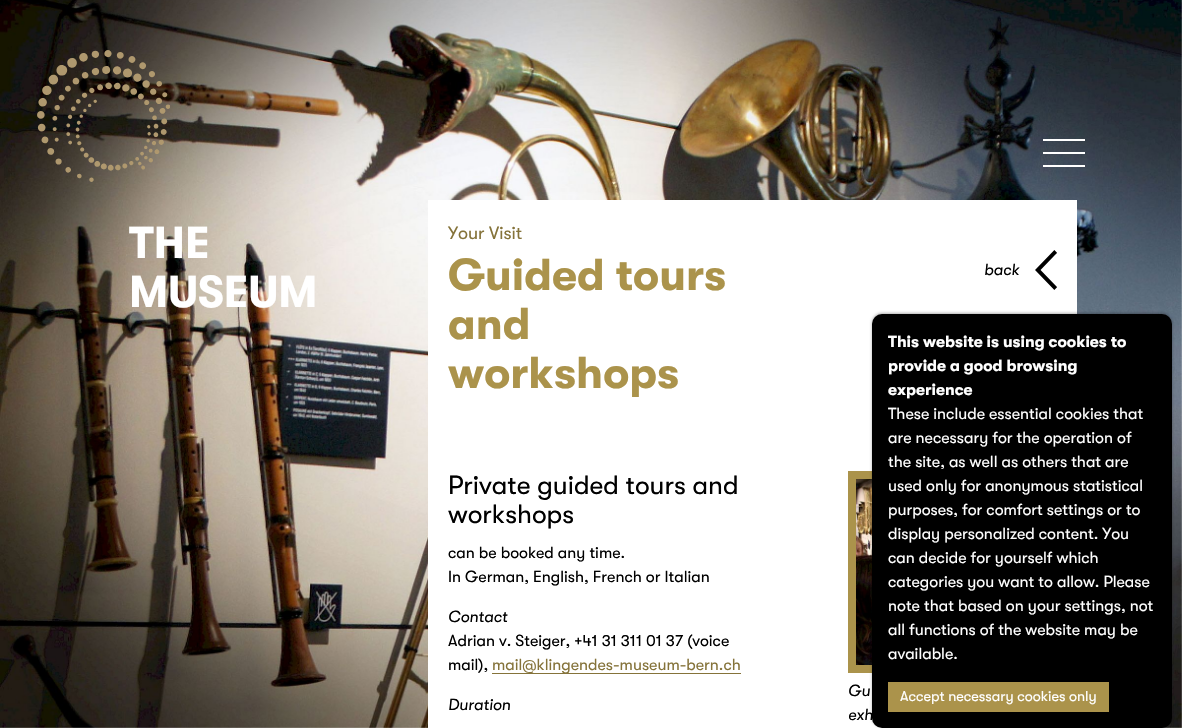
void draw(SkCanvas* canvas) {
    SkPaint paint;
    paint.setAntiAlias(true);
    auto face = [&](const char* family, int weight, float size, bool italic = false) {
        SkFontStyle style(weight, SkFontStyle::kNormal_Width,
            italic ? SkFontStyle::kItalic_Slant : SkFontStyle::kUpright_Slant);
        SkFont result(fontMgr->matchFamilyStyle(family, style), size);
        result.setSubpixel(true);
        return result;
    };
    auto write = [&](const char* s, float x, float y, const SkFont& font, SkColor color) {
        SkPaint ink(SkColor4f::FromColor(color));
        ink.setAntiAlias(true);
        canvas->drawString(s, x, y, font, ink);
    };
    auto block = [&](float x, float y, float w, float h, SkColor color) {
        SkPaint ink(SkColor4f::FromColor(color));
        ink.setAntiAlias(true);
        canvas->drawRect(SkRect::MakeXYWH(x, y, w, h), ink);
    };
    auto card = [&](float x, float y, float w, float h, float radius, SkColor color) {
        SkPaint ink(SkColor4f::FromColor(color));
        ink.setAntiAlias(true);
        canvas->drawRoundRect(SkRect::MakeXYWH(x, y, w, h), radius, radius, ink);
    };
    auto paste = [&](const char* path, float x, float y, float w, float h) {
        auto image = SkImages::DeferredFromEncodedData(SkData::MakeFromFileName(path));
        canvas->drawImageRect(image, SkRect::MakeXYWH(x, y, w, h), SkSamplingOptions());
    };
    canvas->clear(SK_ColorWHITE);
    paste("pic1.png", 0, 0, 1182, 728);
    paste("pic2.png", 37, 50, 133, 132);
    block(1043, 139, 42, 2, SK_ColorWHITE);
    block(1043, 152, 42, 2, SK_ColorWHITE);
    block(1043, 165, 42, 2, SK_ColorWHITE);
    auto kFont1 = face("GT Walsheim", 700, 44.5f);
    write("THE", 129, 258, kFont1, SK_ColorWHITE);
    write("MUSEUM", 129, 307, kFont1, SK_ColorWHITE);
    block(428, 200, 649, 528, SK_ColorWHITE);
    auto kFont2 = face("GT Walsheim", 400, 18);
    write("Your Visit", 448, 239, kFont2, SkColorSetRGB(133, 115, 58));
    write("Guided tours", 448, 290, kFont1, SkColorSetRGB(171, 147, 75));
    write("and", 448, 339, kFont1, SkColorSetRGB(171, 147, 75));
    write("workshops", 448, 388, kFont1, SkColorSetRGB(171, 147, 75));
    auto kFont3 = face("GT Walsheim", 400, 16, true);
    write("back", 984, 275, kFont3, SK_ColorBLACK);
    paste("pic3.png", 1035, 250, 22, 40);
    auto kFont4 = face("GT Walsheim", 400, 26.4f);
    write("Private guided tours and", 448, 494, kFont4, SK_ColorBLACK);
    write("workshops", 448, 523, kFont4, SK_ColorBLACK);
    auto kFont5 = face("GT Walsheim", 400, 16);
    write("can be booked any time.", 448, 558, kFont5, SK_ColorBLACK);
    write("In German, English, French or Italian", 448, 582, kFont5, SK_ColorBLACK);
    write("Contact", 448, 622, kFont3, SK_ColorBLACK);
    write("Adrian v. Steiger, +41 31 311 01 37 (voice", 448, 646, kFont5, SK_ColorBLACK);
    write("mail),", 448, 670, kFont5, SK_ColorBLACK);
    block(492, 673, 249, 1, SkColorSetRGB(133, 115, 58));
    write("mail@klingendes-museum-bern.ch", 492, 670, kFont5, SkColorSetRGB(133, 115, 58));
    write("Duration", 448, 710, kFont3, SK_ColorBLACK);
    paint.setStyle(SkPaint::kStroke_Style);
    paint.setStrokeWidth(8);
    paint.setColor(SkColorSetRGB(171, 147, 75));
    canvas->drawRect(SkRect::MakeXYWH(852, 475, 287, 194), paint);
    paste("pic4.png", 856, 479, 16, 186);
    write("Gu", 848, 696, kFont3, SK_ColorBLACK);
    write("exh", 848, 720, kFont3, SK_ColorBLACK);
    paint.setStyle(SkPaint::kFill_Style);
    paint.setColor(SkColorSetARGB(77, 0, 0, 0));
    paint.setMaskFilter(SkMaskFilter::MakeBlur(kNormal_SkBlurStyle, 1.5f));
    canvas->drawRoundRect(SkRect::MakeXYWH(872, 313, 300, 414), 10, 10, paint);
    paint.setMaskFilter(nullptr);
    card(872, 314, 300, 414, 10, SK_ColorBLACK);
    auto kFont6 = face("GT Walsheim", 700, 16);
    write("This website is using cookies to", 888, 347, kFont6, SK_ColorWHITE);
    write("provide a good browsing", 888, 371, kFont6, SK_ColorWHITE);
    write("experience", 888, 395, kFont6, SK_ColorWHITE);
    write("These include essential cookies that", 888, 419, kFont5, SK_ColorWHITE);
    write("are necessary for the operation of", 888, 443, kFont5, SK_ColorWHITE);
    write("the site, as well as others that are", 888, 467, kFont5, SK_ColorWHITE);
    write("used only for anonymous statistical", 888, 491, kFont5, SK_ColorWHITE);
    write("purposes, for comfort settings or to", 888, 515, kFont5, SK_ColorWHITE);
    write("display personalized content. You", 888, 539, kFont5, SK_ColorWHITE);
    write("can decide for yourself which", 888, 563, kFont5, SK_ColorWHITE);
    write("categories you want to allow. Please", 888, 587, kFont5, SK_ColorWHITE);
    write("note that based on your settings, not", 888, 611, kFont5, SK_ColorWHITE);
    write("all functions of the website may be", 888, 635, kFont5, SK_ColorWHITE);
    write("available.", 888, 659, kFont5, SK_ColorWHITE);
    block(888, 682, 221, 30, SkColorSetRGB(171, 147, 75));
    auto kFont7 = face("GT Walsheim", 400, 14.4f);
    write("Accept necessary cookies only", 900, 701, kFont7, SK_ColorWHITE);
}
